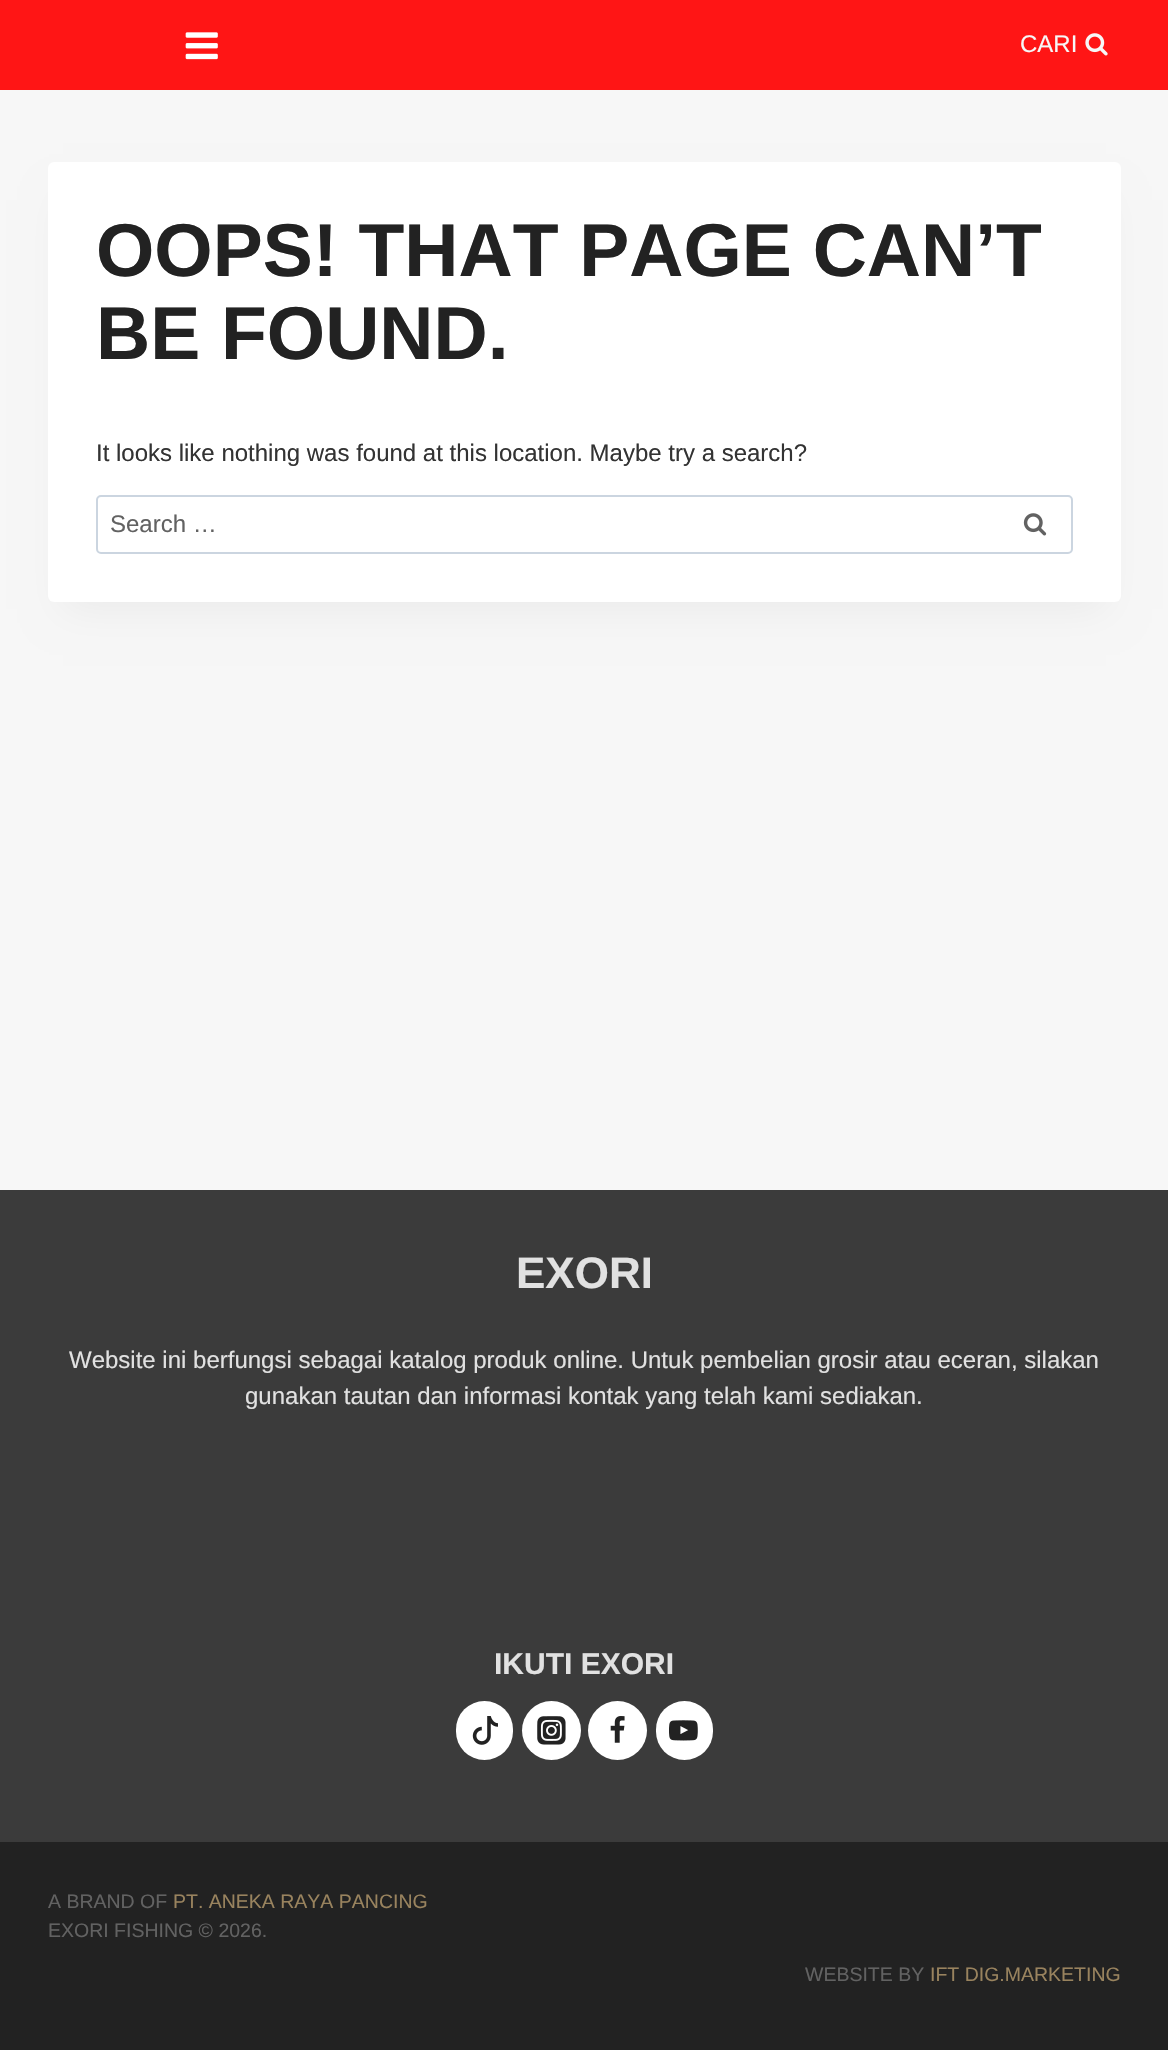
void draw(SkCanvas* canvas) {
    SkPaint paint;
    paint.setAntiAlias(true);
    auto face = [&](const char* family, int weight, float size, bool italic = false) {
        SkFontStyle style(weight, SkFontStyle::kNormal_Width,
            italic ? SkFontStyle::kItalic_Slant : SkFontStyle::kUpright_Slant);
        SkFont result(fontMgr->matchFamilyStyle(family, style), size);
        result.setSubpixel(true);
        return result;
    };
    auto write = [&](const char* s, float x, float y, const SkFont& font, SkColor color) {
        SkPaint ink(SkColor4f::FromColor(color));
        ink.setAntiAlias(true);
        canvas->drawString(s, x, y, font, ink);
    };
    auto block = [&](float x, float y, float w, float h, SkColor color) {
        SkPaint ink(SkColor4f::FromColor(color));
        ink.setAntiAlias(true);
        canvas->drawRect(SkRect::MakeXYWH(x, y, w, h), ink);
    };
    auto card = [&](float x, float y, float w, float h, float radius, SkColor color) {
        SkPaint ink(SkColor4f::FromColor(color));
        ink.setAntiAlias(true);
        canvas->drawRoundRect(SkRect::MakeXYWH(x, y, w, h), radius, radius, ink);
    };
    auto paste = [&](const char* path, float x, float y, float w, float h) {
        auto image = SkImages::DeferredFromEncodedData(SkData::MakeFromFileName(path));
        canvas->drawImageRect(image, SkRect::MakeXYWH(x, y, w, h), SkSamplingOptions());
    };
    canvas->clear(SkColorSetRGB(247, 247, 247));
    block(0, 0, 1168, 90, SkColorSetRGB(255, 21, 21));
    paste("pic1.png", 185, 32, 33, 28);
    auto kFont1 = face("Liberation Sans", 400, 24);
    write("CARI", 1020, 52, kFont1, SkColorSetRGB(247, 247, 247));
    paste("pic2.png", 1085, 33, 23, 23);
    paint.setColor(SkColorSetARGB(13, 0, 0, 0));
    paint.setMaskFilter(SkMaskFilter::MakeBlur(kNormal_SkBlurStyle, 19));
    canvas->drawRect(SkRect::MakeXYWH(63, 200, 1043, 409), paint);
    paint.setMaskFilter(nullptr);
    card(48, 162, 1073, 440, 6, SK_ColorWHITE);
    auto kFont2 = face("Liberation Sans", 700, 75);
    write("OOPS! THAT PAGE CAN’T", 96, 276, kFont2, SkColorSetRGB(34, 34, 34));
    write("BE FOUND.", 96, 359, kFont2, SkColorSetRGB(34, 34, 34));
    write("It looks like nothing was found at this location. Maybe try a search?", 96, 461, kFont1, SkColorSetRGB(51, 51, 51));
    paint.setStyle(SkPaint::kStroke_Style);
    paint.setStrokeWidth(2);
    paint.setColor(SkColorSetRGB(203, 213, 224));
    canvas->drawRoundRect(SkRect::MakeXYWH(97, 496, 975, 57), 4, 4, paint);
    write("Search …", 110, 532, kFont1, SkColorSetRGB(98, 98, 98));
    paste("pic3.png", 1023, 513, 24, 23);
    block(0, 1190, 1168, 652, SkColorSetRGB(59, 59, 59));
    auto kFont3 = face("Liberation Sans", 700, 44);
    write("EXORI", 516, 1288, kFont3, SkColorSetRGB(225, 225, 225));
    write("Website ini berfungsi sebagai katalog produk online. Untuk pembelian grosir atau eceran, silakan", 69, 1368, kFont1, SkColorSetRGB(225, 225, 225));
    write("gunakan tautan dan informasi kontak yang telah kami sediakan.", 245, 1404, kFont1, SkColorSetRGB(225, 225, 225));
    auto kFont4 = face("Liberation Sans", 700, 30);
    write("IKUTI EXORI", 494, 1674, kFont4, SkColorSetRGB(225, 225, 225));
    card(456, 1701, 57, 59, 28.5f, SK_ColorWHITE);
    paste("pic4.png", 472, 1716, 26, 29);
    paint.setStyle(SkPaint::kFill_Style);
    paint.setColor(SK_ColorWHITE);
    canvas->drawCircle(551.5f, 1730.5f, 29.5f, paint);
    paste("pic5.png", 537, 1716, 29, 29);
    canvas->drawCircle(617.5f, 1730.5f, 29.5f, paint);
    paste("pic6.png", 610, 1716, 15, 27);
    card(656, 1701, 57, 59, 28.5f, SK_ColorWHITE);
    paste("pic7.png", 669, 1720, 29, 21);
    block(0, 1842, 1168, 208, SkColorSetRGB(34, 34, 34));
    auto kFont5 = face("Liberation Sans", 400, 19.5f);
    write("A BRAND OF", 48, 1908, kFont5, SkColorSetRGB(98, 98, 98));
    write("PT. ANEKA RAYA PANCING", 173, 1908, kFont5, SkColorSetRGB(153, 131, 94));
    write("EXORI FISHING © 2026.", 48, 1937, kFont5, SkColorSetRGB(98, 98, 98));
    write("WEBSITE BY", 805, 1981, kFont5, SkColorSetRGB(98, 98, 98));
    write("IFT DIG.MARKETING", 930, 1981, kFont5, SkColorSetRGB(153, 131, 94));
}
